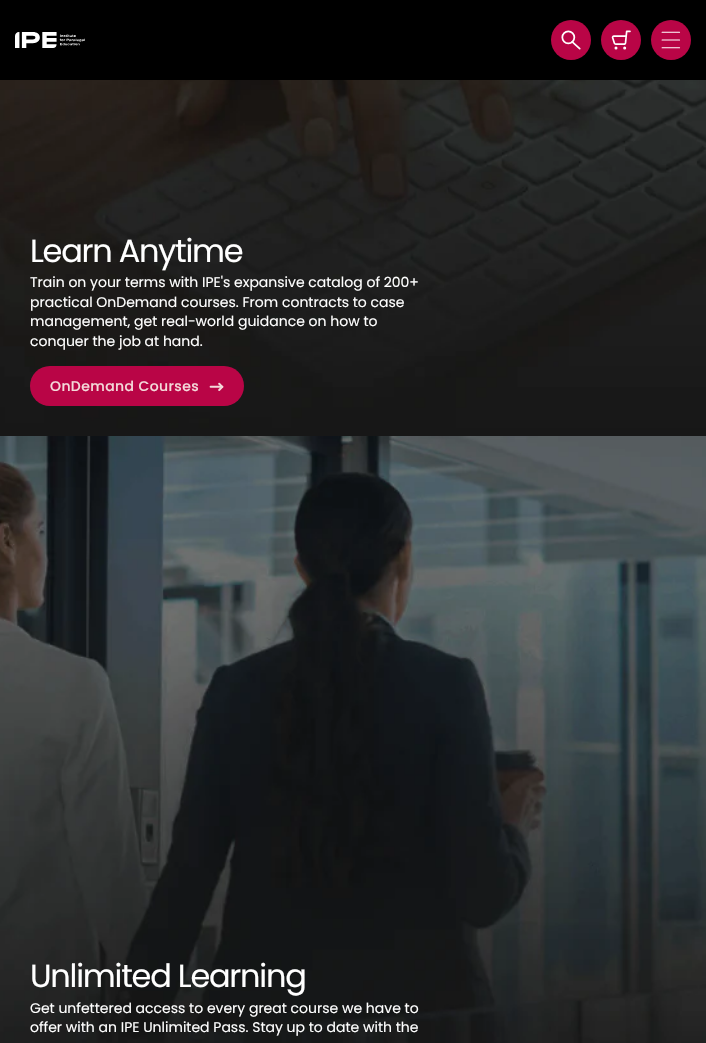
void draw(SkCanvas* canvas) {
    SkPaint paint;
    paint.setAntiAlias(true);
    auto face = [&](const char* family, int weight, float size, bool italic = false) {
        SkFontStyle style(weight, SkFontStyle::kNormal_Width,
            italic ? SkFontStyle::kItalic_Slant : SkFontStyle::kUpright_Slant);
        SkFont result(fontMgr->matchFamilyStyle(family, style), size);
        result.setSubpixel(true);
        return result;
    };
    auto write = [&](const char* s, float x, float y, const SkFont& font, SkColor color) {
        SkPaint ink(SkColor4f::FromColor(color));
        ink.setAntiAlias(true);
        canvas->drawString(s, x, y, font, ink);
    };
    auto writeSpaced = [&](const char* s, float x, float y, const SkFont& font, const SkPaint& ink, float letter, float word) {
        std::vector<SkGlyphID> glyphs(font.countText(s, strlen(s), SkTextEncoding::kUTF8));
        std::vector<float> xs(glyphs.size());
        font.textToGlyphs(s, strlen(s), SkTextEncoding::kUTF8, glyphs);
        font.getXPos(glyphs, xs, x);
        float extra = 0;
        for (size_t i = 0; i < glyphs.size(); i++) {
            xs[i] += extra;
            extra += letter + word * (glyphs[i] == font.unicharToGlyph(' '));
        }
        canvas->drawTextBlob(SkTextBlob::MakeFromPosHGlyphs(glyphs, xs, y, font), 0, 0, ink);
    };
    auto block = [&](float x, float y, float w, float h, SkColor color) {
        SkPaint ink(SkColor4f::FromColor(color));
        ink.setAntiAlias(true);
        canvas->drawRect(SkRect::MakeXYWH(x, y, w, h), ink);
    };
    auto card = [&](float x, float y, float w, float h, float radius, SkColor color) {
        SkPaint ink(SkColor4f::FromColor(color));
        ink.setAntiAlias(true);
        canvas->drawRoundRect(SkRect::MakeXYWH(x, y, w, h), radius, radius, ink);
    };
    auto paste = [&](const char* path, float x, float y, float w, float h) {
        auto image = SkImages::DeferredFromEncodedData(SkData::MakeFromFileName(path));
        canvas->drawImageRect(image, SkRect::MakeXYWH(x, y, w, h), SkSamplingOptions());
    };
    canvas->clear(SK_ColorWHITE);
    block(0, 0, 706, 80, SK_ColorBLACK);
    paste("pic1.png", 15, 32, 70, 16);
    paint.setColor(SkColorSetRGB(185, 5, 70));
    canvas->drawCircle(571, 40, 20, paint);
    paste("pic2.png", 561, 30, 20, 20);
    canvas->drawCircle(621, 40, 20, paint);
    paste("pic3.png", 611, 30, 20, 20);
    canvas->drawCircle(671, 40, 20, paint);
    paste("pic4.png", 661, 31, 20, 18);
    paste("pic5.png", 0, 80, 706, 356);
    auto kFont1 = face("Poppins", 400, 32);
    paint.setColor(SK_ColorWHITE);
    writeSpaced("Learn Anytime", 30, 262, kFont1, paint, -1.25f, 0);
    auto kFont2 = face("Poppins", 400, 14);
    write("Train on your terms with IPE's expansive catalog of 200+", 30, 287, kFont2, SK_ColorWHITE);
    write("practical OnDemand courses. From contracts to case", 30, 307, kFont2, SK_ColorWHITE);
    write("management, get real-world guidance on how to", 30, 326, kFont2, SK_ColorWHITE);
    write("conquer the job at hand.", 30, 346, kFont2, SK_ColorWHITE);
    card(30, 366, 214, 40, 20, SkColorSetRGB(185, 5, 70));
    auto kFont3 = face("Poppins", 500, 14);
    paint.setColor(SkColorSetRGB(244, 218, 218));
    writeSpaced("OnDemand Courses", 50, 391, kFont3, paint, 0.4f, 0);
    paste("pic6.png", 209, 382, 15, 9);
    paste("pic7.png", 0, 436, 706, 607);
    paint.setColor(SK_ColorWHITE);
    writeSpaced("Unlimited Learning", 30, 987, kFont1, paint, -1.25f, 0);
    write("Get unfettered access to every great course we have to", 30, 1013, kFont2, SK_ColorWHITE);
    write("offer with an IPE Unlimited Pass. Stay up to date with the", 30, 1032, kFont2, SK_ColorWHITE);
}
